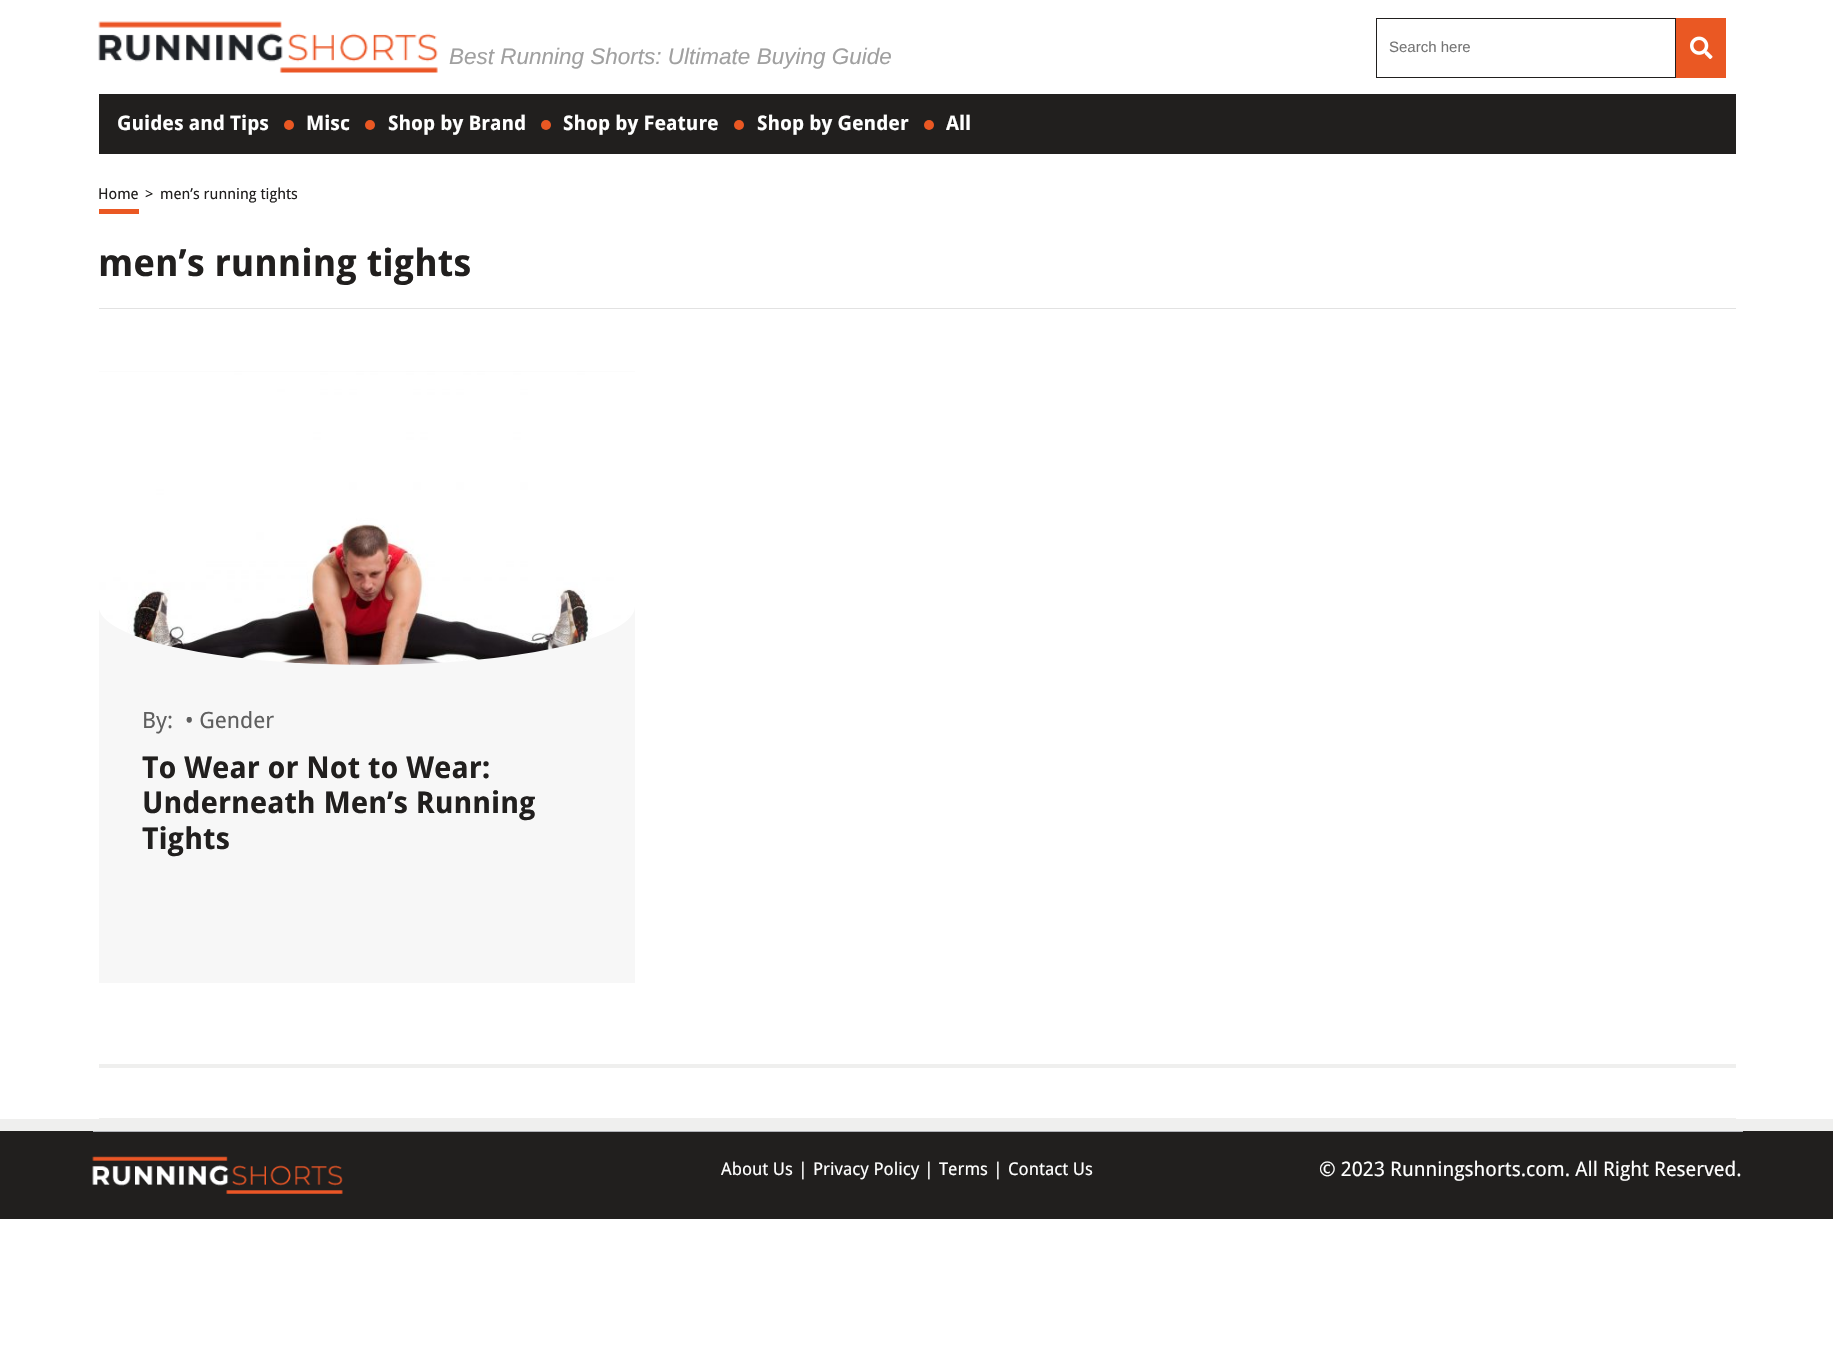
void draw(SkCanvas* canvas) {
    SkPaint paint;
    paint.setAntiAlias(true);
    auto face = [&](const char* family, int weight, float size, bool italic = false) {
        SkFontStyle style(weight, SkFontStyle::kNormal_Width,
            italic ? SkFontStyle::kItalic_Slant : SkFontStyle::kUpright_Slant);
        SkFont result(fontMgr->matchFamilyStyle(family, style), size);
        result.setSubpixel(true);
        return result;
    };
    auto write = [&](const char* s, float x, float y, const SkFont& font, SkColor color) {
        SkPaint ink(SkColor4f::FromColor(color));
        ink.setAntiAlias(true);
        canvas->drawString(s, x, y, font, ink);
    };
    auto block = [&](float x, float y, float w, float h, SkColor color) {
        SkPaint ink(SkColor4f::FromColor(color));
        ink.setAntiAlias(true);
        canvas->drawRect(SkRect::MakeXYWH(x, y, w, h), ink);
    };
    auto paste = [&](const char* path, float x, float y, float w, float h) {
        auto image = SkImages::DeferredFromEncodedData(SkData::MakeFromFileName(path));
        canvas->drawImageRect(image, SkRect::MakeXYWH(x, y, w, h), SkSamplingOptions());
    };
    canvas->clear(SK_ColorWHITE);
    paste("pic1.png", 98, 21, 340, 52);
    auto kFont1 = face("Liberation Sans", 400, 22.5f, true);
    write("Best Running Shorts: Ultimate Buying Guide", 449, 64, kFont1, SkColorSetRGB(160, 160, 160));
    paint.setStyle(SkPaint::kStroke_Style);
    paint.setStrokeWidth(1);
    paint.setColor(SkColorSetRGB(33, 31, 30));
    canvas->drawRect(SkRect::MakeXYWH(1376.5f, 18.5f, 299, 59), paint);
    auto kFont2 = face("Liberation Sans", 400, 15);
    write("Search here", 1389, 52, kFont2, SkColorSetRGB(117, 117, 117));
    block(1676, 18, 50, 60, SkColorSetRGB(234, 88, 35));
    paste("pic2.png", 1690, 36, 23, 23);
    block(99, 94, 1637, 60, SkColorSetRGB(33, 31, 30));
    auto kFont3 = face("Droid Sans", 700, 20);
    write("Guides and Tips", 117, 130, kFont3, SK_ColorWHITE);
    paint.setStyle(SkPaint::kFill_Style);
    paint.setColor(SkColorSetRGB(234, 88, 35));
    canvas->drawCircle(289, 125, 5, paint);
    write("Misc", 306, 130, kFont3, SK_ColorWHITE);
    canvas->drawCircle(370, 125, 5, paint);
    write("Shop by Brand", 388, 130, kFont3, SK_ColorWHITE);
    canvas->drawCircle(546, 125, 5, paint);
    write("Shop by Feature", 563, 130, kFont3, SK_ColorWHITE);
    canvas->drawCircle(739, 125, 5, paint);
    write("Shop by Gender", 757, 130, kFont3, SK_ColorWHITE);
    canvas->drawCircle(929, 125, 5, paint);
    write("All", 946, 130, kFont3, SK_ColorWHITE);
    block(99, 209, 40, 5, SkColorSetRGB(234, 88, 35));
    auto kFont4 = face("Droid Sans", 400, 15);
    write("Home", 98, 199, kFont4, SkColorSetRGB(33, 31, 30));
    write(">", 145, 199, kFont4, SkColorSetRGB(33, 31, 30));
    write("men’s running tights", 160, 199, kFont4, SkColorSetRGB(33, 31, 30));
    block(99, 1064, 1637, 4, SkColorSetRGB(239, 239, 238));
    auto kFont5 = face("Droid Sans", 700, 37.5f);
    write("men’s running tights", 98, 276, kFont5, SkColorSetRGB(33, 31, 30));
    block(99, 308, 1637, 1, SkColorSetRGB(226, 226, 226));
    block(99, 371, 536, 612, SkColorSetRGB(247, 247, 247));
    paste("pic3.png", 99, 371, 536, 294);
    auto kFont6 = face("Droid Sans", 400, 22.5f);
    write("By:", 142, 728, kFont6, SkColorSetRGB(95, 95, 95));
    write("• Gender", 185, 728, kFont6, SkColorSetRGB(95, 95, 95));
    auto kFont7 = face("Droid Sans", 700, 30);
    write("To Wear or Not to Wear:", 142, 778, kFont7, SkColorSetRGB(33, 31, 30));
    write("Underneath Men’s Running", 142, 813, kFont7, SkColorSetRGB(33, 31, 30));
    write("Tights", 142, 849, kFont7, SkColorSetRGB(33, 31, 30));
    block(99, 1118, 1637, 1, SkColorSetRGB(239, 239, 238));
    block(0, 1131, 1833, 88, SkColorSetRGB(33, 31, 30));
    block(0, 1119, 1833, 12, SkColorSetRGB(239, 239, 238));
    block(93, 1131, 1650, 1, SkColorSetRGB(178, 179, 185));
    paste("pic4.png", 92, 1156, 251, 38);
    auto kFont8 = face("Droid Sans", 400, 17.5f);
    write("About Us", 721, 1175, kFont8, SK_ColorWHITE);
    write("|", 798, 1175, kFont8, SK_ColorWHITE);
    write("Privacy Policy", 813, 1175, kFont8, SK_ColorWHITE);
    write("|", 924, 1175, kFont8, SK_ColorWHITE);
    write("Terms", 939, 1175, kFont8, SK_ColorWHITE);
    write("|", 993, 1175, kFont8, SK_ColorWHITE);
    write("Contact Us", 1008, 1175, kFont8, SK_ColorWHITE);
    auto kFont9 = face("Droid Sans", 400, 20);
    write("© 2023 Runningshorts.com. All Right Reserved.", 1319, 1176, kFont9, SK_ColorWHITE);
}
